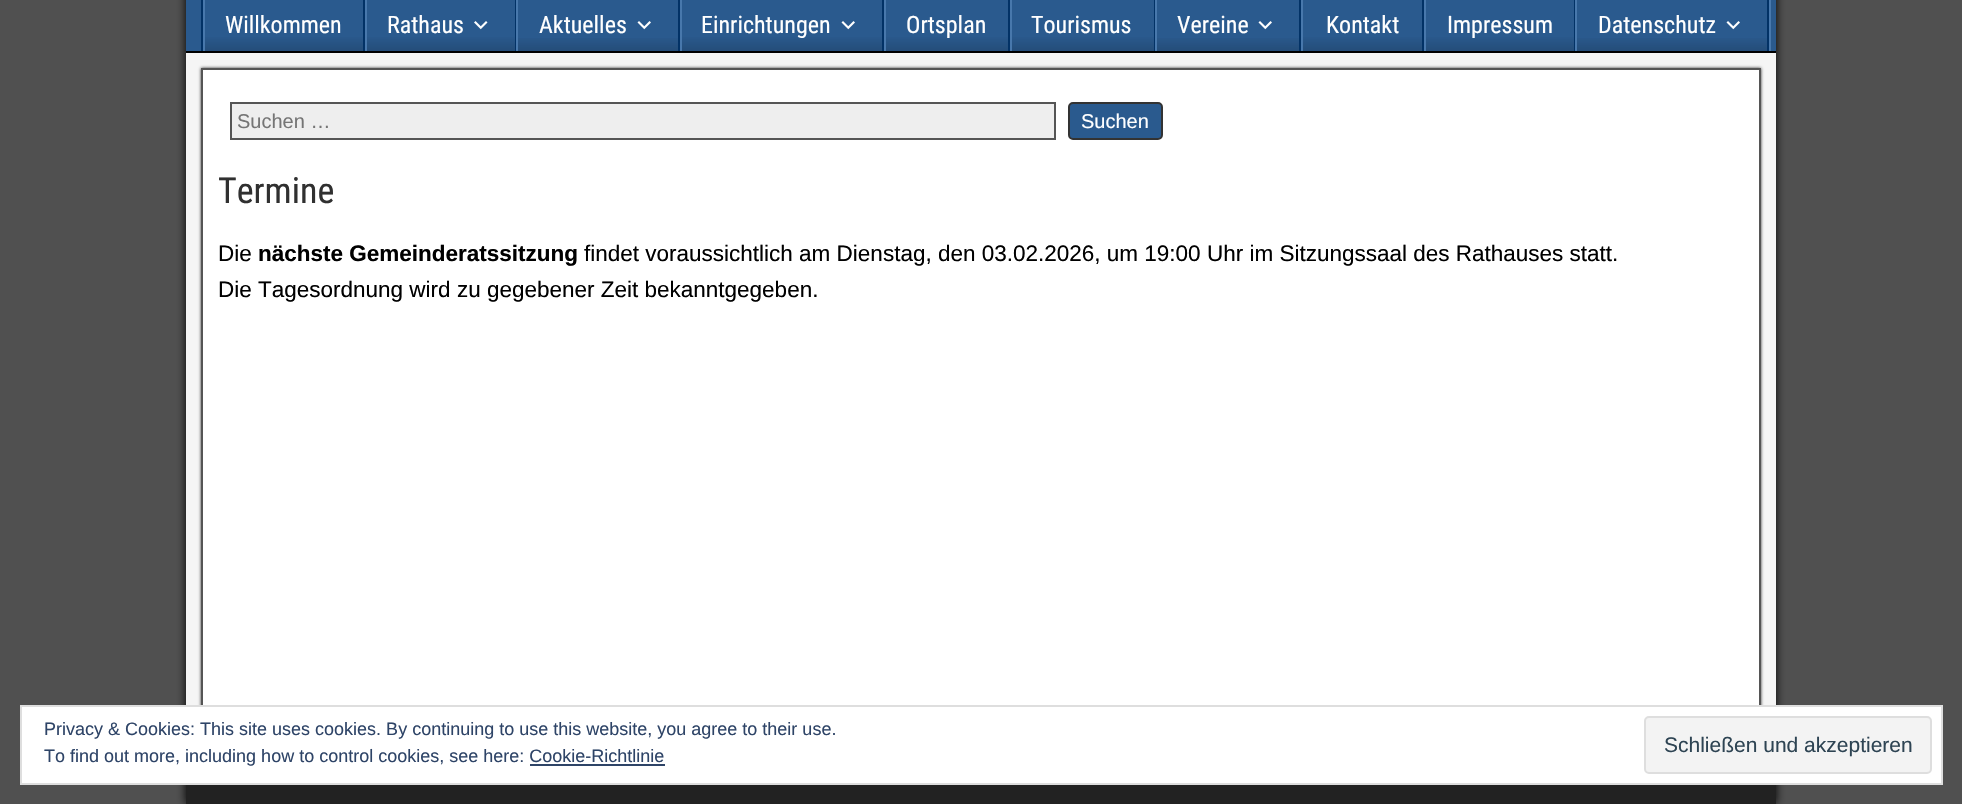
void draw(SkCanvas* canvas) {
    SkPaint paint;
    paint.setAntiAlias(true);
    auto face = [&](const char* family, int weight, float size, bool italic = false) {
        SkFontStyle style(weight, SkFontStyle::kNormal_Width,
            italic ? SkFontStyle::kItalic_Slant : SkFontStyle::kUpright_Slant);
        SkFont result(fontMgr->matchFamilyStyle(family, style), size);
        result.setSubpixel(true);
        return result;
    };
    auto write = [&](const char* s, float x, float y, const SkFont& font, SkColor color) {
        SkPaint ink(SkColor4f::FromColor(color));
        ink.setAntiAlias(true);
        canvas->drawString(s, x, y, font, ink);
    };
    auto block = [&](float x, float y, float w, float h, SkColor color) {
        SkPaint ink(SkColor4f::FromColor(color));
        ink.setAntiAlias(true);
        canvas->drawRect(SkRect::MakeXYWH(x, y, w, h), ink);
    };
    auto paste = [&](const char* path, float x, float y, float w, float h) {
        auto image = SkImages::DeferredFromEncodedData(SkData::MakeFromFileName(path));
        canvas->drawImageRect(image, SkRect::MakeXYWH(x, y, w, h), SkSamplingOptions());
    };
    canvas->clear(SkColorSetRGB(80, 80, 80));
    paint.setColor(SK_ColorBLACK);
    paint.setMaskFilter(SkMaskFilter::MakeBlur(kNormal_SkBlurStyle, 4.5f));
    canvas->drawRect(SkRect::MakeXYWH(186, -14, 1590, 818), paint);
    paint.setMaskFilter(nullptr);
    block(186, 0, 1590, 51, SkColorSetRGB(42, 90, 142));
    block(186, 51, 1590, 2, SK_ColorBLACK);
    block(1769, 0, 2, 51, SkColorSetRGB(72, 120, 172));
    block(201, 0, 2, 51, SkColorSetRGB(2, 50, 102));
    {
        const SkColor colors[] = {SkColorSetRGB(42, 90, 142), SkColorSetRGB(36, 77, 121)};
        const float stops[] = {0.7f, 1};
        const SkPoint ends[] = {{284, -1.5f}, {284, 51}};
        paint.setShader(SkGradientShader::MakeLinear(ends, colors, stops, 2, SkTileMode::kClamp));
        paint.setAlpha(255);
    }
    canvas->drawRect(SkRect::MakeXYWH(205, 37, 158, 14), paint);
    block(363, 0, 2, 51, SkColorSetRGB(2, 50, 102));
    block(203, 0, 2, 51, SkColorSetRGB(72, 120, 172));
    auto kFont1 = face("Roboto Condensed", 400, 24);
    write("Willkommen", 225, 33, kFont1, SK_ColorWHITE);
    {
        const SkColor colors[] = {SkColorSetRGB(42, 90, 142), SkColorSetRGB(36, 77, 121)};
        const float stops[] = {0.7f, 1};
        const SkPoint ends[] = {{440, -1.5f}, {440, 51}};
        paint.setShader(SkGradientShader::MakeLinear(ends, colors, stops, 2, SkTileMode::kClamp));
        paint.setAlpha(255);
    }
    canvas->drawRect(SkRect::MakeXYWH(367, 37, 148, 14), paint);
    block(515, 0, 1, 51, SkColorSetRGB(2, 50, 102));
    block(365, 0, 2, 51, SkColorSetRGB(72, 120, 172));
    write("Rathaus", 387, 33, kFont1, SK_ColorWHITE);
    paste("pic1.png", 474, 21, 14, 9);
    {
        const SkColor colors[] = {SkColorSetARGB(0, 0, 0, 0), SkColorSetARGB(38, 0, 0, 0)};
        const float stops[] = {0.7f, 1};
        const SkPoint ends[] = {{598, -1.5f}, {598, 51}};
        paint.setShader(SkGradientShader::MakeLinear(ends, colors, stops, 2, SkTileMode::kClamp));
        paint.setAlpha(255);
    }
    canvas->drawRect(SkRect::MakeXYWH(518, 38, 160, 13), paint);
    block(678, 0, 2, 51, SkColorSetRGB(2, 50, 102));
    block(516, 0, 2, 51, SkColorSetRGB(72, 120, 172));
    write("Aktuelles", 539, 33, kFont1, SK_ColorWHITE);
    paste("pic2.png", 637, 21, 14, 9);
    {
        const SkColor colors[] = {SkColorSetRGB(42, 90, 142), SkColorSetRGB(36, 77, 121)};
        const float stops[] = {0.7f, 1};
        const SkPoint ends[] = {{782, -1.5f}, {782, 51}};
        paint.setShader(SkGradientShader::MakeLinear(ends, colors, stops, 2, SkTileMode::kClamp));
        paint.setAlpha(255);
    }
    canvas->drawRect(SkRect::MakeXYWH(682, 37, 200, 14), paint);
    block(882, 0, 2, 51, SkColorSetRGB(2, 50, 102));
    block(680, 0, 2, 51, SkColorSetRGB(72, 120, 172));
    write("Einrichtungen", 701, 33, kFont1, SK_ColorWHITE);
    paste("pic2.png", 841, 21, 14, 9);
    {
        const SkColor colors[] = {SkColorSetRGB(42, 90, 142), SkColorSetRGB(36, 77, 121)};
        const float stops[] = {0.7f, 1};
        const SkPoint ends[] = {{947, -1.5f}, {947, 51}};
        paint.setShader(SkGradientShader::MakeLinear(ends, colors, stops, 2, SkTileMode::kClamp));
        paint.setAlpha(255);
    }
    canvas->drawRect(SkRect::MakeXYWH(886, 37, 122, 14), paint);
    block(1008, 0, 2, 51, SkColorSetRGB(2, 50, 102));
    block(884, 0, 2, 51, SkColorSetRGB(72, 120, 172));
    write("Ortsplan", 906, 33, kFont1, SK_ColorWHITE);
    {
        const SkColor colors[] = {SkColorSetRGB(42, 90, 142), SkColorSetRGB(36, 77, 121)};
        const float stops[] = {0.7f, 1};
        const SkPoint ends[] = {{1082, -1.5f}, {1082, 51}};
        paint.setShader(SkGradientShader::MakeLinear(ends, colors, stops, 2, SkTileMode::kClamp));
        paint.setAlpha(255);
    }
    canvas->drawRect(SkRect::MakeXYWH(1012, 37, 142, 14), paint);
    block(1154, 0, 1, 51, SkColorSetRGB(2, 50, 102));
    block(1010, 0, 2, 51, SkColorSetRGB(72, 120, 172));
    write("Tourismus", 1031, 33, kFont1, SK_ColorWHITE);
    {
        const SkColor colors[] = {SkColorSetARGB(0, 0, 0, 0), SkColorSetARGB(38, 0, 0, 0)};
        const float stops[] = {0.7f, 1};
        const SkPoint ends[] = {{1228, -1.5f}, {1228, 51}};
        paint.setShader(SkGradientShader::MakeLinear(ends, colors, stops, 2, SkTileMode::kClamp));
        paint.setAlpha(255);
    }
    canvas->drawRect(SkRect::MakeXYWH(1157, 38, 142, 13), paint);
    block(1299, 0, 2, 51, SkColorSetRGB(2, 50, 102));
    block(1155, 0, 2, 51, SkColorSetRGB(72, 120, 172));
    write("Vereine", 1177, 33, kFont1, SK_ColorWHITE);
    paste("pic2.png", 1258, 21, 14, 9);
    {
        const SkColor colors[] = {SkColorSetRGB(42, 90, 142), SkColorSetRGB(36, 77, 121)};
        const float stops[] = {0.7f, 1};
        const SkPoint ends[] = {{1362, -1.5f}, {1362, 51}};
        paint.setShader(SkGradientShader::MakeLinear(ends, colors, stops, 2, SkTileMode::kClamp));
        paint.setAlpha(255);
    }
    canvas->drawRect(SkRect::MakeXYWH(1303, 37, 119, 14), paint);
    block(1422, 0, 2, 51, SkColorSetRGB(2, 50, 102));
    block(1301, 0, 2, 51, SkColorSetRGB(72, 120, 172));
    write("Kontakt", 1326, 33, kFont1, SK_ColorWHITE);
    {
        const SkColor colors[] = {SkColorSetRGB(42, 90, 142), SkColorSetRGB(36, 77, 121)};
        const float stops[] = {0.7f, 1};
        const SkPoint ends[] = {{1499, -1.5f}, {1499, 51}};
        paint.setShader(SkGradientShader::MakeLinear(ends, colors, stops, 2, SkTileMode::kClamp));
        paint.setAlpha(255);
    }
    canvas->drawRect(SkRect::MakeXYWH(1426, 37, 148, 14), paint);
    block(1574, 0, 1, 51, SkColorSetRGB(2, 50, 102));
    block(1424, 0, 2, 51, SkColorSetRGB(72, 120, 172));
    write("Impressum", 1447, 33, kFont1, SK_ColorWHITE);
    {
        const SkColor colors[] = {SkColorSetARGB(0, 0, 0, 0), SkColorSetARGB(38, 0, 0, 0)};
        const float stops[] = {0.7f, 1};
        const SkPoint ends[] = {{1672, -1.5f}, {1672, 51}};
        paint.setShader(SkGradientShader::MakeLinear(ends, colors, stops, 2, SkTileMode::kClamp));
        paint.setAlpha(255);
    }
    canvas->drawRect(SkRect::MakeXYWH(1577, 38, 190, 13), paint);
    block(1767, 0, 2, 51, SkColorSetRGB(2, 50, 102));
    block(1575, 0, 2, 51, SkColorSetRGB(72, 120, 172));
    write("Datenschutz", 1598, 33, kFont1, SK_ColorWHITE);
    paste("pic2.png", 1726, 21, 14, 9);
    block(186, 53, 1590, 652, SkColorSetRGB(245, 245, 245));
    paint.setShader(nullptr);
    paint.setColor(SkColorSetRGB(51, 51, 51));
    paint.setMaskFilter(SkMaskFilter::MakeBlur(kNormal_SkBlurStyle, 1.5f));
    canvas->drawRect(SkRect::MakeXYWH(201, 68, 1560, 652), paint);
    paint.setMaskFilter(nullptr);
    block(203, 70, 1556, 635, SK_ColorWHITE);
    paint.setStyle(SkPaint::kStroke_Style);
    paint.setStrokeWidth(2);
    paint.setColor(SkColorSetRGB(85, 85, 85));
    canvas->drawRect(SkRect::MakeXYWH(202, 69, 1558, 650), paint);
    paint.setStyle(SkPaint::kFill_Style);
    paint.setColor(SkColorSetRGB(238, 238, 238));
    canvas->drawRect(SkRect::MakeXYWH(231, 103, 824, 36), paint);
    paint.setStyle(SkPaint::kStroke_Style);
    paint.setColor(SkColorSetRGB(85, 85, 85));
    canvas->drawRect(SkRect::MakeXYWH(231, 103, 824, 36), paint);
    auto kFont2 = face("Liberation Sans", 400, 20);
    write("Suchen …", 237, 128, kFont2, SkColorSetRGB(117, 117, 117));
    paint.setStyle(SkPaint::kFill_Style);
    paint.setColor(SkColorSetRGB(42, 90, 142));
    canvas->drawRoundRect(SkRect::MakeXYWH(1069, 103, 93, 36), 4, 4, paint);
    paint.setStyle(SkPaint::kStroke_Style);
    paint.setColor(SkColorSetRGB(51, 51, 51));
    canvas->drawRoundRect(SkRect::MakeXYWH(1069, 103, 93, 36), 4, 4, paint);
    write("Suchen", 1081, 128, kFont2, SK_ColorWHITE);
    auto kFont3 = face("Roboto Condensed", 400, 36);
    write("Termine", 218, 203, kFont3, SkColorSetRGB(48, 48, 48));
    auto kFont4 = face("Arimo", 400, 22.5f);
    write("Die", 218, 261, kFont4, SK_ColorBLACK);
    auto kFont5 = face("Arimo", 700, 22.5f);
    write("nächste Gemeinderatssitzung", 258, 261, kFont5, SK_ColorBLACK);
    write("findet voraussichtlich am Dienstag, den 03.02.2026, um 19:00 Uhr im Sitzungssaal des Rathauses statt.", 584, 261, kFont4, SK_ColorBLACK);
    write("Die Tagesordnung wird zu gegebener Zeit bekanntgegeben.", 218, 297, kFont4, SK_ColorBLACK);
    block(186, 785, 1590, 19, SkColorSetRGB(34, 34, 34));
    paint.setStyle(SkPaint::kFill_Style);
    paint.setColor(SK_ColorWHITE);
    canvas->drawRect(SkRect::MakeXYWH(21, 706, 1921, 78), paint);
    paint.setStyle(SkPaint::kStroke_Style);
    paint.setColor(SkColorSetRGB(222, 222, 222));
    canvas->drawRect(SkRect::MakeXYWH(21, 706, 1921, 78), paint);
    auto kFont6 = face("Liberation Sans", 400, 18);
    write("Privacy & Cookies: This site uses cookies. By continuing to use this website, you agree to their use.", 44, 735, kFont6, SkColorSetRGB(46, 68, 103));
    write("To find out more, including how to control cookies, see here: Cookie-Richtlinie", 44, 762, kFont6, SkColorSetRGB(46, 68, 103));
    paint.setStyle(SkPaint::kFill_Style);
    paint.setColor(SkColorSetRGB(243, 243, 243));
    canvas->drawRoundRect(SkRect::MakeXYWH(1645, 717, 286, 56), 4, 4, paint);
    paint.setStyle(SkPaint::kStroke_Style);
    paint.setColor(SkColorSetRGB(222, 222, 222));
    canvas->drawRoundRect(SkRect::MakeXYWH(1645, 717, 286, 56), 4, 4, paint);
    auto kFont7 = face("Liberation Sans", 400, 21);
    write("Schließen und akzeptieren", 1664, 752, kFont7, SkColorSetRGB(46, 68, 83));
    block(530, 764, 135, 2, SkColorSetRGB(46, 68, 103));
}
